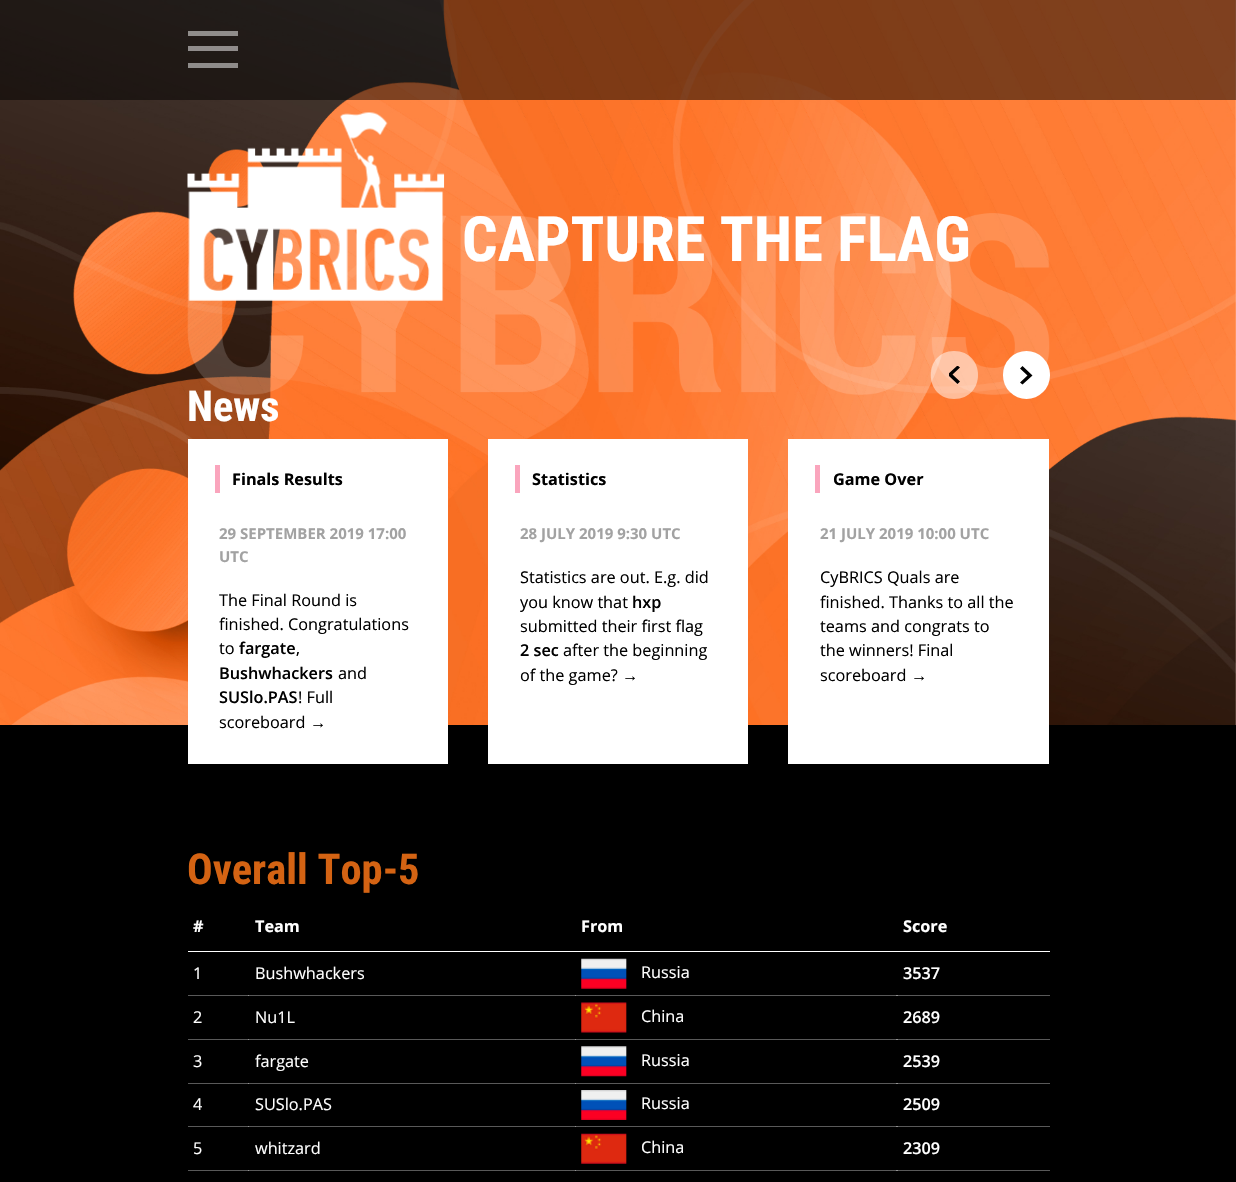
void draw(SkCanvas* canvas) {
    SkPaint paint;
    paint.setAntiAlias(true);
    auto face = [&](const char* family, int weight, float size, bool italic = false) {
        SkFontStyle style(weight, SkFontStyle::kNormal_Width,
            italic ? SkFontStyle::kItalic_Slant : SkFontStyle::kUpright_Slant);
        SkFont result(fontMgr->matchFamilyStyle(family, style), size);
        result.setSubpixel(true);
        return result;
    };
    auto write = [&](const char* s, float x, float y, const SkFont& font, SkColor color) {
        SkPaint ink(SkColor4f::FromColor(color));
        ink.setAntiAlias(true);
        canvas->drawString(s, x, y, font, ink);
    };
    auto block = [&](float x, float y, float w, float h, SkColor color) {
        SkPaint ink(SkColor4f::FromColor(color));
        ink.setAntiAlias(true);
        canvas->drawRect(SkRect::MakeXYWH(x, y, w, h), ink);
    };
    auto card = [&](float x, float y, float w, float h, float radius, SkColor color) {
        SkPaint ink(SkColor4f::FromColor(color));
        ink.setAntiAlias(true);
        canvas->drawRoundRect(SkRect::MakeXYWH(x, y, w, h), radius, radius, ink);
    };
    auto paste = [&](const char* path, float x, float y, float w, float h) {
        auto image = SkImages::DeferredFromEncodedData(SkData::MakeFromFileName(path));
        canvas->drawImageRect(image, SkRect::MakeXYWH(x, y, w, h), SkSamplingOptions());
    };
    canvas->clear(SK_ColorBLACK);
    block(188, 995, 862, 1, SkColorSetRGB(89, 89, 89));
    block(248, 995, 1, 1, SkColorSetRGB(147, 147, 147));
    block(575, 995, 1, 1, SkColorSetRGB(147, 147, 147));
    block(188, 1039, 862, 1, SkColorSetRGB(89, 89, 89));
    block(248, 1039, 1, 1, SkColorSetRGB(147, 147, 147));
    block(575, 1039, 1, 1, SkColorSetRGB(147, 147, 147));
    block(188, 1083, 862, 1, SkColorSetRGB(89, 89, 89));
    block(248, 1083, 1, 1, SkColorSetRGB(147, 147, 147));
    block(575, 1083, 1, 1, SkColorSetRGB(147, 147, 147));
    block(188, 1126, 862, 1, SkColorSetRGB(89, 89, 89));
    block(248, 1126, 1, 1, SkColorSetRGB(147, 147, 147));
    block(575, 1126, 1, 1, SkColorSetRGB(147, 147, 147));
    block(188, 1170, 862, 1, SkColorSetRGB(89, 89, 89));
    block(248, 1170, 1, 1, SkColorSetRGB(147, 147, 147));
    block(575, 1170, 1, 1, SkColorSetRGB(147, 147, 147));
    paste("pic1.png", 0, 0, 1236, 725);
    block(0, 0, 1236, 100, SkColorSetARGB(128, 0, 0, 0));
    block(188, 31, 50, 5, SkColorSetRGB(144, 141, 139));
    block(188, 46, 50, 5, SkColorSetRGB(144, 140, 139));
    block(188, 63, 50, 5, SkColorSetRGB(143, 140, 138));
    paste("pic2.png", 187, 213, 863, 182);
    paste("pic3.png", 187, 112, 258, 189);
    auto kFont1 = face("Roboto Condensed", 700, 62.5f);
    write("CAPTURE THE FLAG", 462, 261, kFont1, SK_ColorWHITE);
    auto kFont2 = face("Roboto Condensed", 700, 42.5f);
    write("News", 187, 421, kFont2, SK_ColorWHITE);
    paint.setColor(SkColorSetARGB(128, 255, 255, 255));
    canvas->drawPath(SkPathBuilder().moveTo(954, 399).cubicTo(923, 399, 923, 351, 954, 351).cubicTo(986, 351, 986, 399, 954, 399).close().detach(), paint);
    canvas->save();
    canvas->clipRect(SkRect::MakeXYWH(949, 366, 12, 19));
    paint.setColor(SK_ColorBLACK);
    canvas->drawPath(SkPathBuilder(SkPathFillType::kEvenOdd).moveTo(957.5f, 384).lineTo(960, 381.5f).lineTo(952.5f, 374.5f).lineTo(960, 367.5f).lineTo(957.5f, 365.5f).lineTo(947.5f, 374.5f).close().detach(), paint);
    canvas->restore();
    card(1003, 351, 47, 48, 23.5f, SK_ColorWHITE);
    canvas->drawPath(SkPathBuilder(SkPathFillType::kEvenOdd).moveTo(1022.5f, 366).lineTo(1020, 368.5f).lineTo(1027.5f, 375.5f).lineTo(1020, 382.5f).lineTo(1022.5f, 384.5f).lineTo(1032.5f, 375.5f).close().detach(), paint);
    block(188, 439, 260, 325, SK_ColorWHITE);
    block(215, 465, 5, 28, SkColorSetRGB(250, 165, 189));
    auto kFont3 = face("Open Sans", 700, 16.25f);
    write("Finals Results", 232, 485, kFont3, SK_ColorBLACK);
    auto kFont4 = face("Open Sans", 700, 15);
    write("29 SEPTEMBER 2019 17:00", 219, 539, kFont4, SkColorSetRGB(162, 162, 162));
    write("UTC", 219, 562, kFont4, SkColorSetRGB(162, 162, 162));
    auto kFont5 = face("Open Sans", 400, 16.25f);
    write("The Final Round is", 219, 606, kFont5, SK_ColorBLACK);
    write("finished. Congratulations", 219, 630, kFont5, SK_ColorBLACK);
    write("to", 219, 654, kFont5, SK_ColorBLACK);
    auto kFont6 = face("Open Sans", 600, 16.25f);
    write("fargate", 239, 654, kFont6, SK_ColorBLACK);
    write(",", 296, 654, kFont5, SK_ColorBLACK);
    write("Bushwhackers", 219, 679, kFont6, SK_ColorBLACK);
    write("and", 338, 679, kFont5, SK_ColorBLACK);
    write("SUSlo.PAS", 219, 703, kFont6, SK_ColorBLACK);
    write("! Full", 298, 703, kFont5, SK_ColorBLACK);
    write("scoreboard", 219, 728, kFont5, SK_ColorBLACK);
    auto kFont7 = face("Liberation Sans", 400, 16.25f);
    write("→", 310, 728, kFont7, SK_ColorBLACK);
    block(488, 439, 260, 325, SK_ColorWHITE);
    block(515, 465, 5, 28, SkColorSetRGB(250, 165, 189));
    write("Statistics", 532, 485, kFont3, SK_ColorBLACK);
    write("28 JULY 2019 9:30 UTC", 520, 539, kFont4, SkColorSetRGB(162, 162, 162));
    write("Statistics are out. E.g. did", 520, 583, kFont5, SK_ColorBLACK);
    write("you know that", 520, 608, kFont5, SK_ColorBLACK);
    write("hxp", 632, 608, kFont6, SK_ColorBLACK);
    write("submitted their first flag", 520, 632, kFont5, SK_ColorBLACK);
    write("2 sec", 520, 656, kFont6, SK_ColorBLACK);
    write("after the beginning", 563, 656, kFont5, SK_ColorBLACK);
    write("of the game?", 520, 681, kFont5, SK_ColorBLACK);
    write("→", 622, 681, kFont7, SK_ColorBLACK);
    block(788, 439, 261, 325, SK_ColorWHITE);
    block(815, 465, 5, 28, SkColorSetRGB(250, 165, 189));
    write("Game Over", 833, 485, kFont3, SK_ColorBLACK);
    write("21 JULY 2019 10:00 UTC", 820, 539, kFont4, SkColorSetRGB(162, 162, 162));
    write("CyBRICS Quals are", 820, 583, kFont5, SK_ColorBLACK);
    write("finished. Thanks to all the", 820, 608, kFont5, SK_ColorBLACK);
    write("teams and congrats to", 820, 632, kFont5, SK_ColorBLACK);
    write("the winners! Final", 820, 656, kFont5, SK_ColorBLACK);
    write("scoreboard", 820, 681, kFont5, SK_ColorBLACK);
    write("→", 911, 681, kFont7, SK_ColorBLACK);
    write("Overall Top-5", 187, 884, kFont2, SkColorSetRGB(212, 99, 19));
    write("#", 193, 932, kFont3, SK_ColorWHITE);
    write("Team", 255, 932, kFont3, SK_ColorWHITE);
    write("From", 581, 932, kFont3, SK_ColorWHITE);
    block(188, 951, 862, 1, SK_ColorWHITE);
    write("Score", 903, 932, kFont3, SK_ColorWHITE);
    write("1", 193, 979, kFont5, SK_ColorWHITE);
    write("Bushwhackers", 255, 979, kFont5, SK_ColorWHITE);
    paste("pic4.png", 581, 958, 46, 31);
    write("Russia", 641, 978, kFont5, SK_ColorWHITE);
    block(896, 995, 2, 1, SkColorSetRGB(147, 147, 147));
    write("3537", 903, 979, kFont6, SK_ColorWHITE);
    write("2", 193, 1023, kFont5, SK_ColorWHITE);
    write("Nu1L", 255, 1023, kFont5, SK_ColorWHITE);
    paste("pic5.png", 581, 1002, 46, 31);
    write("China", 641, 1022, kFont5, SK_ColorWHITE);
    block(896, 1039, 2, 1, SkColorSetRGB(147, 147, 147));
    write("2689", 903, 1023, kFont6, SK_ColorWHITE);
    write("3", 193, 1067, kFont5, SK_ColorWHITE);
    write("fargate", 255, 1067, kFont5, SK_ColorWHITE);
    paste("pic6.png", 581, 1046, 46, 31);
    write("Russia", 641, 1066, kFont5, SK_ColorWHITE);
    block(896, 1083, 2, 1, SkColorSetRGB(147, 147, 147));
    write("2539", 903, 1067, kFont6, SK_ColorWHITE);
    write("4", 193, 1110, kFont5, SK_ColorWHITE);
    write("SUSlo.PAS", 255, 1110, kFont5, SK_ColorWHITE);
    paste("pic7.png", 581, 1090, 46, 30);
    write("Russia", 641, 1109, kFont5, SK_ColorWHITE);
    block(896, 1126, 2, 1, SkColorSetRGB(147, 147, 147));
    write("2509", 903, 1110, kFont6, SK_ColorWHITE);
    write("5", 193, 1154, kFont5, SK_ColorWHITE);
    write("whitzard", 255, 1154, kFont5, SK_ColorWHITE);
    paste("pic8.png", 581, 1133, 46, 31);
    write("China", 641, 1153, kFont5, SK_ColorWHITE);
    block(896, 1170, 2, 1, SkColorSetRGB(147, 147, 147));
    write("2309", 903, 1154, kFont6, SK_ColorWHITE);
}
